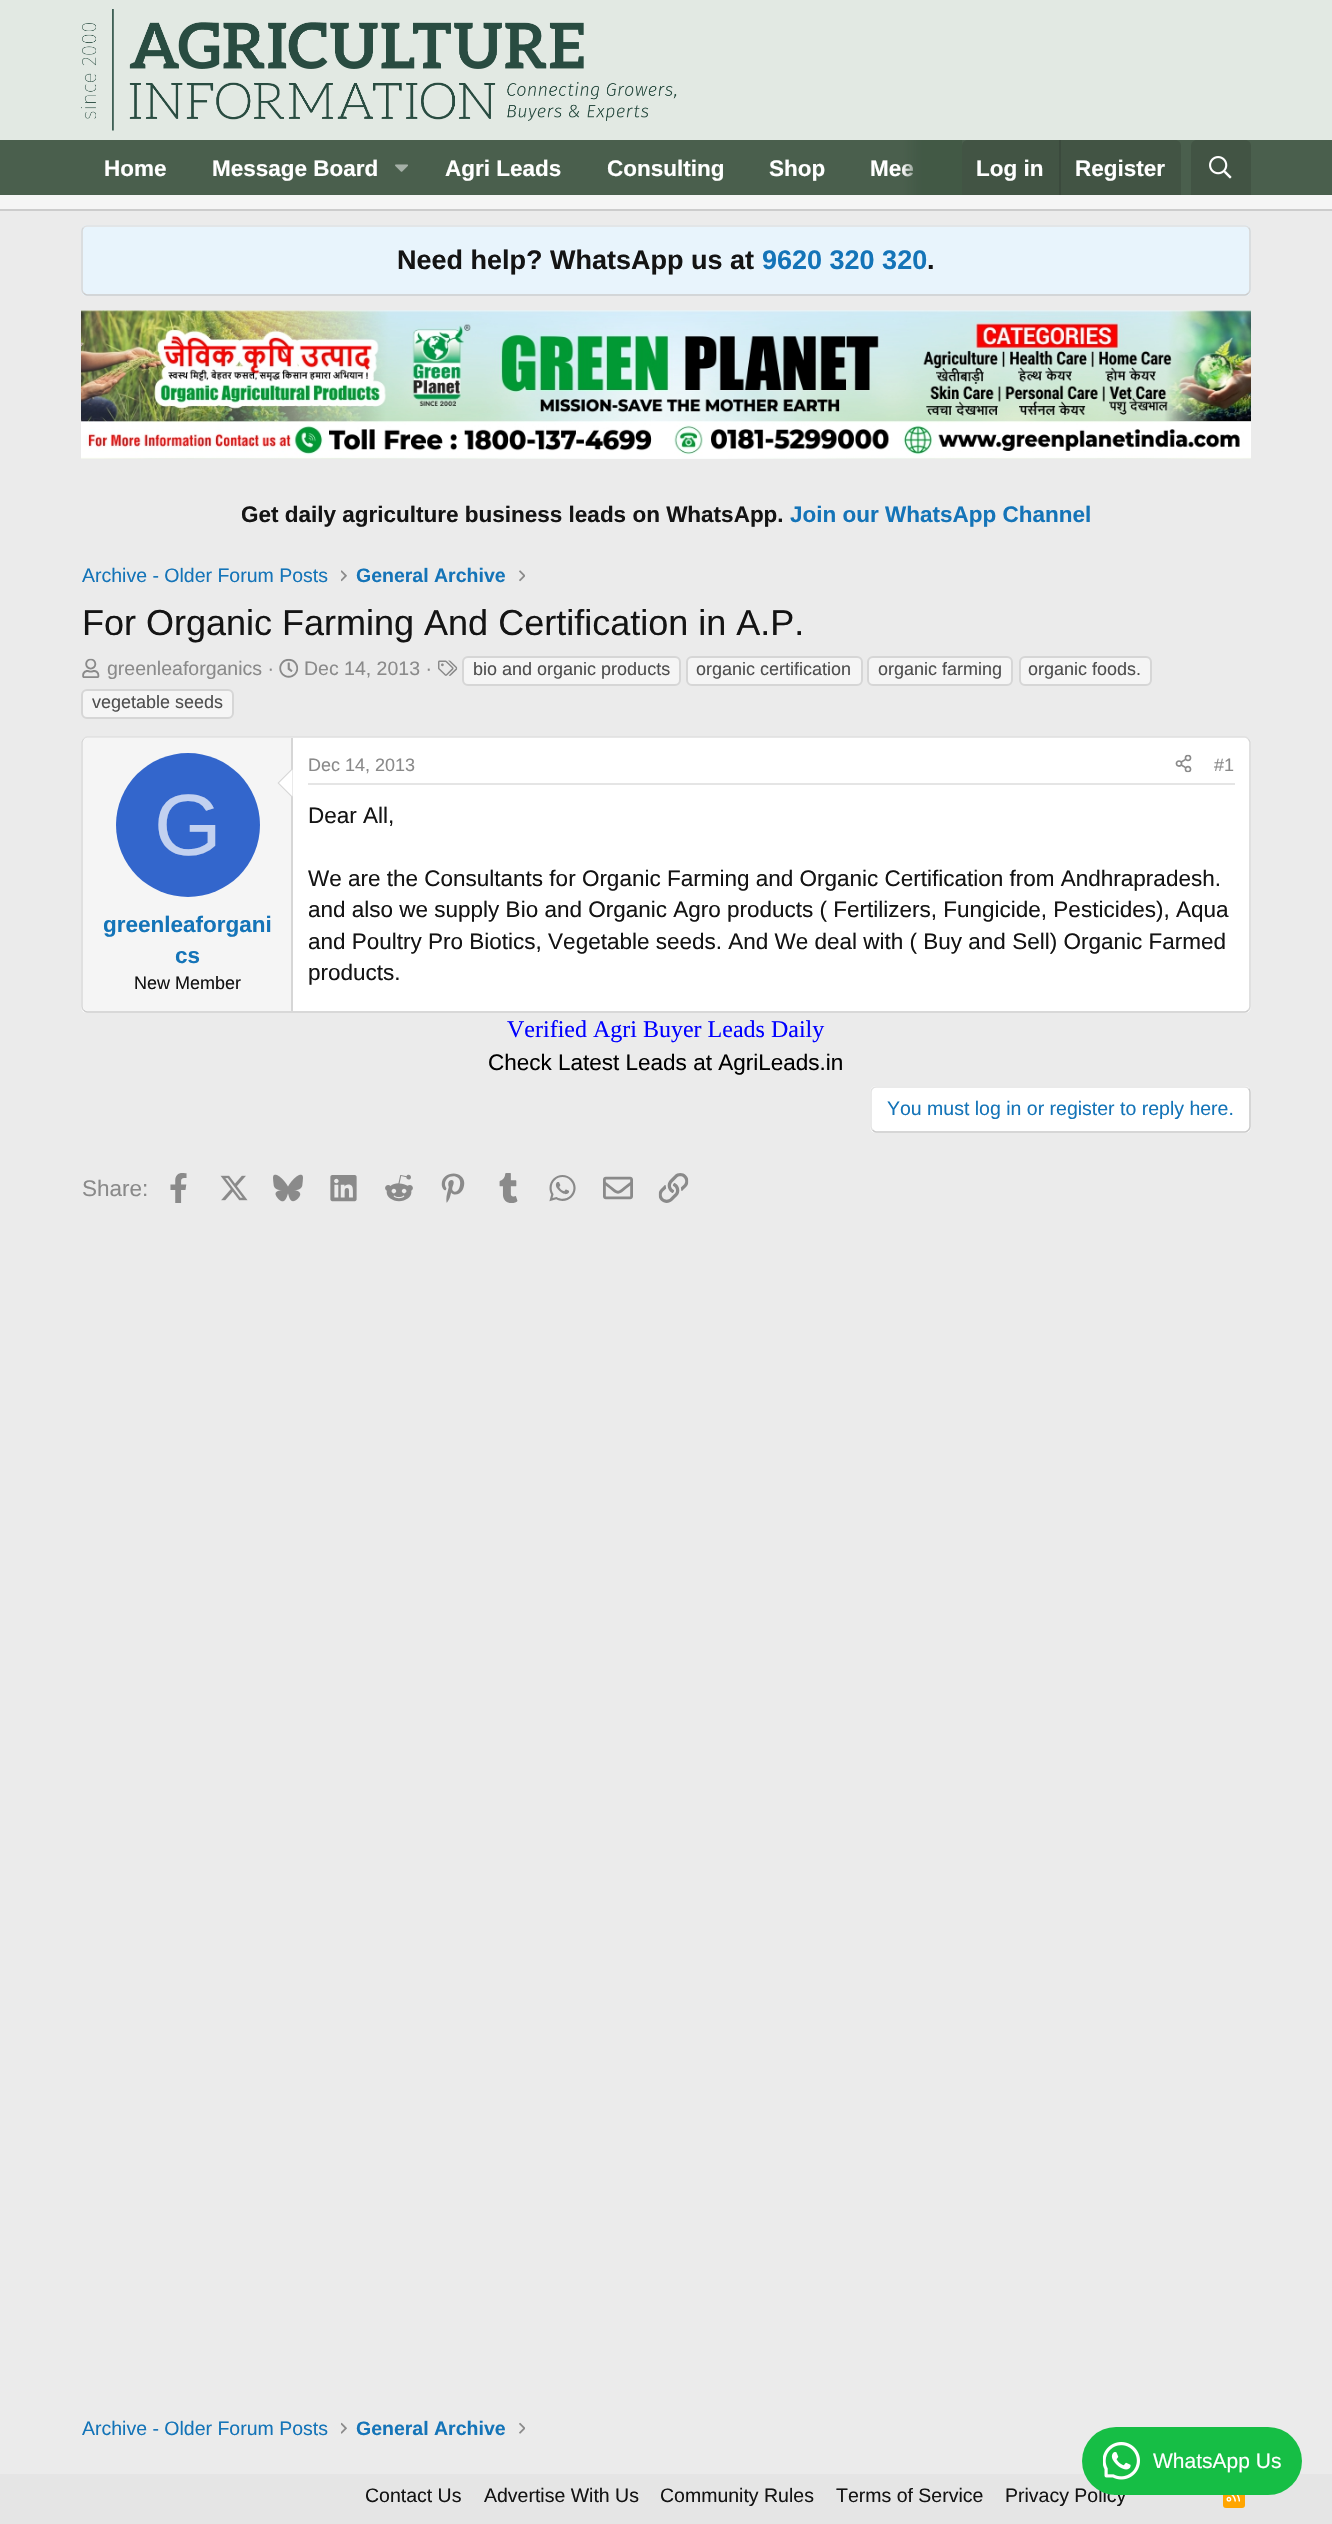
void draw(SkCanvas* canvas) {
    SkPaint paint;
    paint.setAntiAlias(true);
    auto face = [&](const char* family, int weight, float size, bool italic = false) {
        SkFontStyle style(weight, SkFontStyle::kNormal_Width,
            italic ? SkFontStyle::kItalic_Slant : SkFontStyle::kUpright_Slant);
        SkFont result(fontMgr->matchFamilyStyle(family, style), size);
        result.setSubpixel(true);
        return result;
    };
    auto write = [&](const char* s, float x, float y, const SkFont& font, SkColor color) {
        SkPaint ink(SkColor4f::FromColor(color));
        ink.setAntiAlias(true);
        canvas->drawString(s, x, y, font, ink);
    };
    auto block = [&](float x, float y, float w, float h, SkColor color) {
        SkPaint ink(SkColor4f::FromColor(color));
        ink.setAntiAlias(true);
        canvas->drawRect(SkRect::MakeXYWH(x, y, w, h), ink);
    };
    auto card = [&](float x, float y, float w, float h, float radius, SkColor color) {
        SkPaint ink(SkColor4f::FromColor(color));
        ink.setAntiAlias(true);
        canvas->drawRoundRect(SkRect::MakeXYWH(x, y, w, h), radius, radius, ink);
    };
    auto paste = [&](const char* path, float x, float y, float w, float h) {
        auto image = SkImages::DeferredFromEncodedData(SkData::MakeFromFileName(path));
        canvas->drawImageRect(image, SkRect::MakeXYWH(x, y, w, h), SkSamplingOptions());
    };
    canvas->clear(SkColorSetRGB(235, 235, 235));
    block(0, 0, 1332, 140, SkColorSetRGB(226, 233, 227));
    paste("pic1.png", 81, 9, 596, 122);
    block(0, 140, 1332, 55, SkColorSetRGB(74, 95, 77));
    auto kFont1 = face("Liberation Sans", 700, 22.5f);
    write("Home", 104, 176, kFont1, SK_ColorWHITE);
    write("Message Board", 212, 176, kFont1, SK_ColorWHITE);
    paste("pic2.png", 395, 164, 13, 8);
    write("Agri Leads", 445, 176, kFont1, SK_ColorWHITE);
    write("Consulting", 607, 176, kFont1, SK_ColorWHITE);
    write("Shop", 769, 176, kFont1, SK_ColorWHITE);
    write("Mee", 870, 176, kFont1, SK_ColorWHITE);
    {
        const SkColor colors[] = {SkColorSetARGB(0, 65, 88, 69), SkColorSetARGB(242, 65, 88, 69)};
        const float stops[] = {0, 0.33f};
        const SkPoint ends[] = {{902, 167}, {962, 167}};
        paint.setShader(SkGradientShader::MakeLinear(ends, colors, stops, 2, SkTileMode::kClamp));
        paint.setAlpha(255);
    }
    canvas->drawRect(SkRect::MakeXYWH(903, 140, 59, 55), paint);
    paint.setShader(nullptr);
    paint.setColor(SkColorSetRGB(66, 84, 68));
    canvas->drawPath(SkPathBuilder().moveTo(968, 140).lineTo(1175, 140).cubicTo(1178.5f, 140, 1181, 142.5f, 1181, 146).lineTo(1181, 195).lineTo(962, 195).lineTo(962, 146).cubicTo(962, 142.5f, 964.5f, 140, 968, 140).close().detach(), paint);
    write("Log in", 976, 176, kFont1, SK_ColorWHITE);
    block(1059, 140, 2, 55, SkColorSetRGB(59, 74, 61));
    write("Register", 1075, 176, kFont1, SK_ColorWHITE);
    canvas->drawPath(SkPathBuilder().moveTo(1197, 140).lineTo(1245, 140).cubicTo(1248.5f, 140, 1251, 142.5f, 1251, 146).lineTo(1251, 195).lineTo(1191, 195).lineTo(1191, 146).cubicTo(1191, 142.5f, 1193.5f, 140, 1197, 140).close().detach(), paint);
    paste("pic3.png", 1209, 156, 23, 23);
    block(0, 195, 1332, 14, SkColorSetRGB(245, 245, 245));
    block(0, 209, 1332, 2, SkColorSetRGB(204, 204, 204));
    card(81, 225, 1170, 71, 6, SkColorSetRGB(232, 244, 252));
    paint.setStyle(SkPaint::kStroke_Style);
    paint.setStrokeWidth(1.5f);
    paint.setColor(SkColorSetRGB(224, 224, 224));
    canvas->drawPath(SkPathBuilder().moveTo(83.5f, 227.5f).cubicTo(84.5f, 226.5f, 85.5f, 226, 87, 226).lineTo(1245, 226).cubicTo(1246.5f, 226, 1247.5f, 226.5f, 1248.5f, 227.5f).detach(), paint);
    paint.setColor(SkColorSetRGB(214, 214, 214));
    canvas->drawPath(SkPathBuilder().moveTo(1248.5f, 227.5f).cubicTo(1249.5f, 228.5f, 1250, 229.5f, 1250, 231).lineTo(1250, 289.5f).cubicTo(1250, 291, 1249.5f, 292, 1248.5f, 293).detach(), paint);
    paint.setColor(SkColorSetRGB(204, 204, 204));
    canvas->drawPath(SkPathBuilder().moveTo(1248.5f, 293).cubicTo(1247.5f, 294, 1246.5f, 295, 1245, 295).lineTo(87, 295).cubicTo(85.5f, 295, 84.5f, 294, 83.5f, 293).detach(), paint);
    paint.setColor(SkColorSetRGB(214, 214, 214));
    canvas->drawPath(SkPathBuilder().moveTo(83.5f, 293).cubicTo(82.5f, 292, 82, 291, 82, 289.5f).lineTo(82, 231).cubicTo(82, 229.5f, 82.5f, 228.5f, 83.5f, 227.5f).detach(), paint);
    auto kFont2 = face("Liberation Sans", 700, 27);
    write("Need help? WhatsApp us at", 397, 269, kFont2, SkColorSetRGB(20, 20, 20));
    write("9620 320 320", 762, 269, kFont2, SkColorSetRGB(20, 116, 184));
    write(".", 927, 269, kFont2, SkColorSetRGB(20, 20, 20));
    paste("pic4.png", 81, 310, 1170, 149);
    write("Get daily agriculture business leads on WhatsApp.", 241, 522, kFont1, SkColorSetRGB(20, 20, 20));
    write("Join our WhatsApp Channel", 790, 522, kFont1, SkColorSetRGB(20, 116, 184));
    auto kFont3 = face("Liberation Sans", 400, 19.5f);
    write("Archive - Older Forum Posts", 82, 582, kFont3, SkColorSetRGB(20, 116, 184));
    paste("pic5.png", 341, 570, 6, 12);
    auto kFont4 = face("Liberation Sans", 700, 19.5f);
    write("General Archive", 356, 582, kFont4, SkColorSetRGB(20, 116, 184));
    paste("pic6.png", 519, 570, 6, 12);
    auto kFont5 = face("Liberation Sans", 400, 36);
    write("For Organic Farming And Certification in A.P.", 82, 635, kFont5, SkColorSetRGB(20, 20, 20));
    paste("pic7.png", 82, 658, 18, 20);
    write("greenleaforganics ·", 107, 675, kFont3, SkColorSetRGB(138, 138, 138));
    paste("pic8.png", 438, 660, 20, 16);
    paint.setStyle(SkPaint::kFill_Style);
    paint.setColor(SkColorSetRGB(245, 245, 245));
    canvas->drawRoundRect(SkRect::MakeXYWH(463, 657, 217, 28), 5, 5, paint);
    paint.setStyle(SkPaint::kStroke_Style);
    paint.setStrokeWidth(2);
    paint.setColor(SkColorSetRGB(214, 214, 214));
    canvas->drawRoundRect(SkRect::MakeXYWH(463, 657, 217, 28), 5, 5, paint);
    auto kFont6 = face("Liberation Sans", 400, 18);
    write("bio and organic products", 473, 675, kFont6, SkColorSetRGB(79, 79, 79));
    paint.setStyle(SkPaint::kFill_Style);
    paint.setColor(SkColorSetRGB(245, 245, 245));
    canvas->drawRoundRect(SkRect::MakeXYWH(687, 657, 175, 28), 5, 5, paint);
    paint.setStyle(SkPaint::kStroke_Style);
    paint.setColor(SkColorSetRGB(214, 214, 214));
    canvas->drawRoundRect(SkRect::MakeXYWH(687, 657, 175, 28), 5, 5, paint);
    write("organic certification", 696, 675, kFont6, SkColorSetRGB(79, 79, 79));
    paint.setStyle(SkPaint::kFill_Style);
    paint.setColor(SkColorSetRGB(245, 245, 245));
    canvas->drawRoundRect(SkRect::MakeXYWH(868, 657, 144, 28), 5, 5, paint);
    paint.setStyle(SkPaint::kStroke_Style);
    paint.setColor(SkColorSetRGB(214, 214, 214));
    canvas->drawRoundRect(SkRect::MakeXYWH(868, 657, 144, 28), 5, 5, paint);
    write("organic farming", 878, 675, kFont6, SkColorSetRGB(79, 79, 79));
    paint.setStyle(SkPaint::kFill_Style);
    paint.setColor(SkColorSetRGB(245, 245, 245));
    canvas->drawRoundRect(SkRect::MakeXYWH(1020, 657, 131, 28), 5, 5, paint);
    paint.setStyle(SkPaint::kStroke_Style);
    paint.setColor(SkColorSetRGB(214, 214, 214));
    canvas->drawRoundRect(SkRect::MakeXYWH(1020, 657, 131, 28), 5, 5, paint);
    write("organic foods.", 1028, 675, kFont6, SkColorSetRGB(79, 79, 79));
    paint.setStyle(SkPaint::kFill_Style);
    paint.setColor(SkColorSetRGB(245, 245, 245));
    canvas->drawRoundRect(SkRect::MakeXYWH(82, 690, 151, 28), 5, 5, paint);
    paint.setStyle(SkPaint::kStroke_Style);
    paint.setColor(SkColorSetRGB(214, 214, 214));
    canvas->drawRoundRect(SkRect::MakeXYWH(82, 690, 151, 28), 5, 5, paint);
    write("vegetable seeds", 92, 708, kFont6, SkColorSetRGB(79, 79, 79));
    paste("pic9.png", 279, 658, 20, 20);
    write("Dec 14, 2013 ·", 304, 675, kFont3, SkColorSetRGB(138, 138, 138));
    card(81, 737, 1170, 276, 6, SK_ColorWHITE);
    paint.setStrokeWidth(1.5f);
    paint.setColor(SkColorSetRGB(224, 224, 224));
    canvas->drawPath(SkPathBuilder().moveTo(83.5f, 739).cubicTo(84.5f, 738, 85.5f, 737, 87, 737).lineTo(1245, 737).cubicTo(1246.5f, 737, 1247.5f, 738, 1248.5f, 739).detach(), paint);
    paint.setColor(SkColorSetRGB(214, 214, 214));
    canvas->drawPath(SkPathBuilder().moveTo(1248.5f, 739).lineTo(1250, 742).lineTo(1250, 1006.5f).cubicTo(1250, 1008, 1249.5f, 1009, 1248.5f, 1010).detach(), paint);
    paint.setColor(SkColorSetRGB(204, 204, 204));
    canvas->drawPath(SkPathBuilder().moveTo(1248.5f, 1010).cubicTo(1247.5f, 1011, 1246.5f, 1012, 1245, 1012).lineTo(87, 1012).cubicTo(85.5f, 1012, 84.5f, 1011, 83.5f, 1010).detach(), paint);
    paint.setColor(SkColorSetRGB(214, 214, 214));
    canvas->drawPath(SkPathBuilder().moveTo(83.5f, 1010).cubicTo(82.5f, 1009, 82, 1008, 82, 1006.5f).lineTo(82, 742).lineTo(83.5f, 739).detach(), paint);
    paint.setStyle(SkPaint::kFill_Style);
    paint.setColor(SkColorSetRGB(245, 245, 245));
    canvas->drawPath(SkPathBuilder().moveTo(88, 738).lineTo(293, 738).lineTo(293, 1011).lineTo(88, 1011).cubicTo(85, 1011, 83, 1009, 83, 1006).lineTo(83, 743).cubicTo(83, 740, 85, 738, 88, 738).close().detach(), paint);
    block(291, 738, 2, 273, SkColorSetRGB(214, 214, 214));
    paint.setColor(SkColorSetRGB(214, 214, 214));
    canvas->drawPath(SkPathBuilder().moveTo(292.5f, 768).lineTo(292.5f, 798).lineTo(277.5f, 783).close().detach(), paint);
    paint.setColor(SK_ColorWHITE);
    canvas->drawPath(SkPathBuilder().moveTo(292.5f, 769.5f).lineTo(292.5f, 796.5f).lineTo(279, 783).close().detach(), paint);
    paint.setColor(SkColorSetRGB(51, 102, 204));
    canvas->drawCircle(188, 825, 72, paint);
    auto kFont7 = face("Liberation Sans", 400, 87);
    write("G", 154, 855, kFont7, SkColorSetRGB(194, 209, 240));
    write("greenleaforgani", 103, 932, kFont1, SkColorSetRGB(20, 116, 184));
    write("cs", 175, 963, kFont1, SkColorSetRGB(20, 116, 184));
    write("New Member", 134, 989, kFont6, SkColorSetRGB(20, 20, 20));
    block(308, 783, 927, 2, SkColorSetRGB(229, 229, 229));
    write("Dec 14, 2013", 308, 771, kFont6, SkColorSetRGB(138, 138, 138));
    paste("pic10.png", 1175, 754, 17, 19);
    write("#1", 1214, 771, kFont6, SkColorSetRGB(138, 138, 138));
    auto kFont8 = face("Liberation Sans", 400, 22.5f);
    write("Dear All,", 308, 823, kFont8, SkColorSetRGB(20, 20, 20));
    write("We are the Consultants for Organic Farming and Organic Certification from Andhrapradesh.", 308, 886, kFont8, SkColorSetRGB(20, 20, 20));
    write("and also we supply Bio and Organic Agro products ( Fertilizers, Fungicide, Pesticides), Aqua", 308, 917, kFont8, SkColorSetRGB(20, 20, 20));
    write("and Poultry Pro Biotics, Vegetable seeds. And We deal with ( Buy and Sell) Organic Farmed", 308, 949, kFont8, SkColorSetRGB(20, 20, 20));
    write("products.", 308, 980, kFont8, SkColorSetRGB(20, 20, 20));
    auto kFont9 = face("Liberation Serif", 400, 24);
    write("Verified Agri Buyer Leads Daily", 507, 1037, kFont9, SkColorSetRGB(0, 0, 255));
    write("Check Latest Leads at AgriLeads.in", 488, 1070, kFont8, SK_ColorBLACK);
    card(870, 1086, 381, 47, 6, SK_ColorWHITE);
    paint.setStyle(SkPaint::kStroke_Style);
    paint.setColor(SkColorSetRGB(201, 201, 201));
    canvas->drawPath(SkPathBuilder().moveTo(1248.5f, 1088.5f).cubicTo(1249.5f, 1089.5f, 1250, 1090.5f, 1250, 1092).lineTo(1250, 1126.5f).cubicTo(1250, 1128, 1249.5f, 1129, 1248.5f, 1130).cubicTo(1247.5f, 1131, 1246.5f, 1132, 1245, 1132).lineTo(876, 1132).cubicTo(874.5f, 1132, 873.5f, 1131, 872.5f, 1130).detach(), paint);
    paint.setColor(SkColorSetRGB(227, 227, 227));
    canvas->drawPath(SkPathBuilder().moveTo(872.5f, 1130).cubicTo(871.5f, 1129, 871, 1128, 871, 1126.5f).lineTo(871, 1092).cubicTo(871, 1090.5f, 871.5f, 1089.5f, 872.5f, 1088.5f).cubicTo(873.5f, 1087.5f, 874.5f, 1087, 876, 1087).lineTo(1245, 1087).cubicTo(1246.5f, 1087, 1247.5f, 1087.5f, 1248.5f, 1088.5f).detach(), paint);
    write("You must log in or register to reply here.", 887, 1115, kFont3, SkColorSetRGB(20, 116, 184));
    write("Share:", 82, 1196, kFont8, SkColorSetRGB(138, 138, 138));
    paste("pic11.png", 170, 1173, 17, 30);
    paste("pic12.png", 220, 1175, 28, 26);
    paste("pic13.png", 273, 1174, 30, 28);
    paste("pic14.png", 330, 1175, 27, 27);
    paste("pic15.png", 385, 1174, 28, 28);
    paste("pic16.png", 441, 1173, 24, 30);
    paste("pic17.png", 499, 1173, 19, 30);
    paste("pic18.png", 549, 1175, 27, 27);
    paste("pic19.png", 603, 1176, 30, 24);
    paste("pic20.png", 658, 1173, 31, 30);
    write("Archive - Older Forum Posts", 82, 2435, kFont3, SkColorSetRGB(20, 116, 184));
    paste("pic21.png", 341, 2422, 6, 12);
    write("General Archive", 356, 2435, kFont4, SkColorSetRGB(20, 116, 184));
    paste("pic22.png", 519, 2422, 6, 12);
    block(0, 2474, 1332, 50, SkColorSetRGB(229, 229, 229));
    write("Contact Us", 365, 2502, kFont3, SkColorSetRGB(20, 20, 20));
    write("Advertise With Us", 484, 2502, kFont3, SkColorSetRGB(20, 20, 20));
    write("Community Rules", 660, 2502, kFont3, SkColorSetRGB(20, 20, 20));
    write("Terms of Service", 836, 2502, kFont3, SkColorSetRGB(20, 20, 20));
    write("Privacy Policy", 1005, 2502, kFont3, SkColorSetRGB(20, 20, 20));
    card(1223, 2486, 22, 22, 3, SkColorSetRGB(255, 165, 0));
    paste("pic23.png", 1226, 2495, 14, 7);
    card(1082, 2427, 220, 68, 34, SkColorSetRGB(22, 190, 69));
    paste("pic24.png", 1103, 2442, 37, 38);
    auto kFont10 = face("Liberation Sans", 400, 21);
    write("WhatsApp Us", 1153, 2468, kFont10, SK_ColorWHITE);
}
